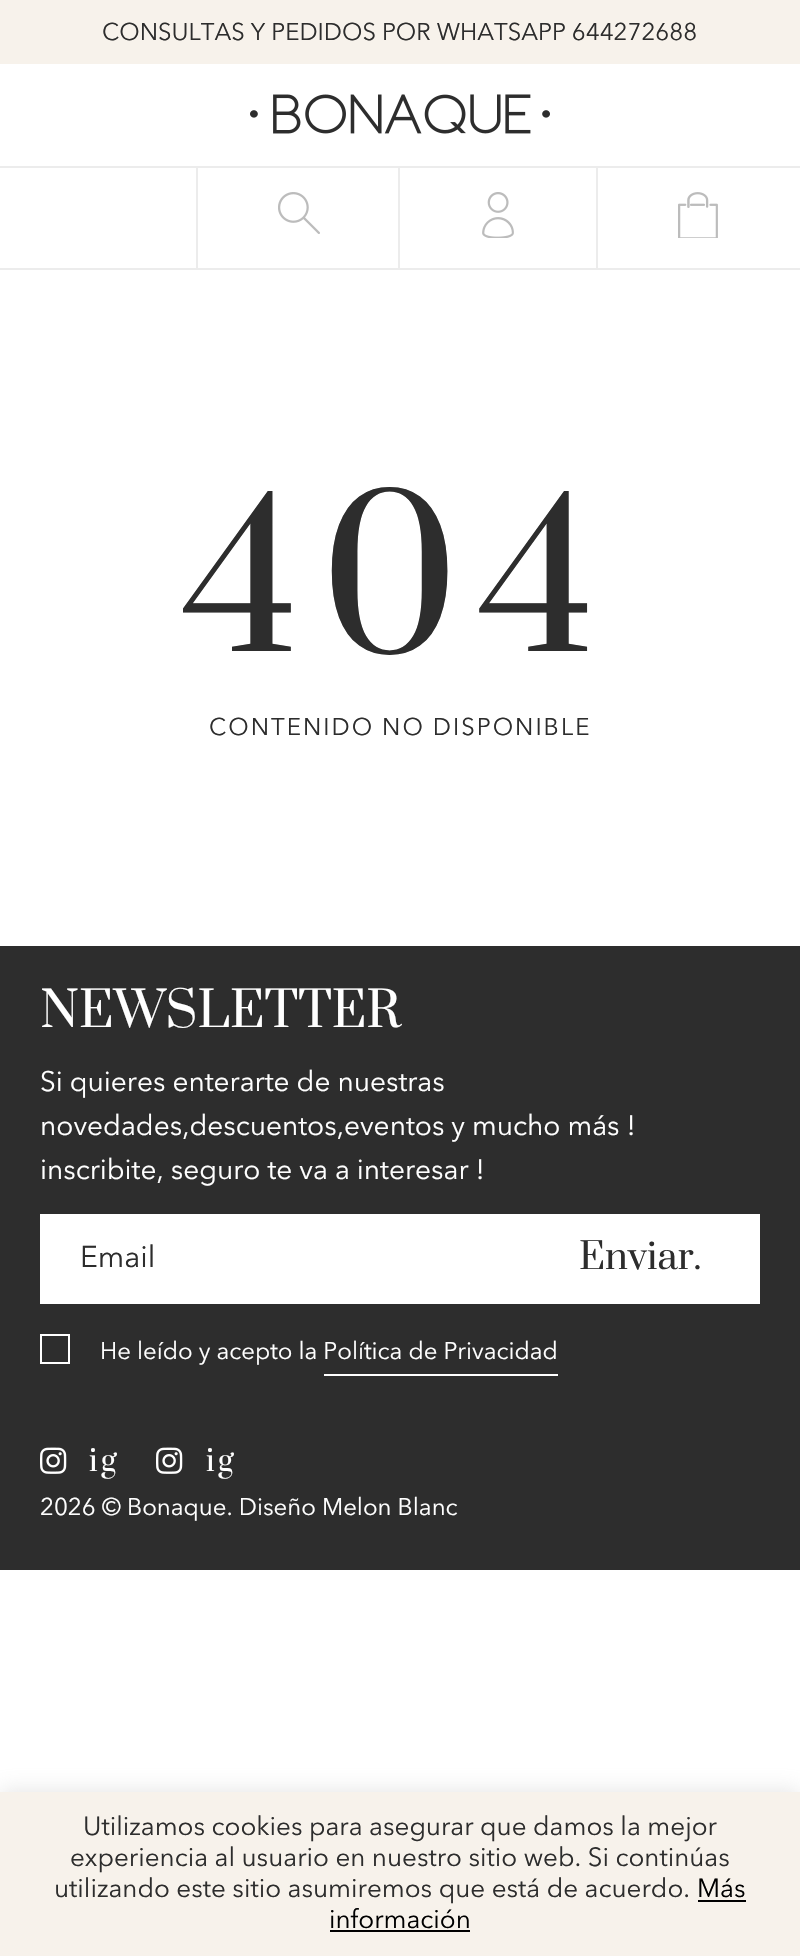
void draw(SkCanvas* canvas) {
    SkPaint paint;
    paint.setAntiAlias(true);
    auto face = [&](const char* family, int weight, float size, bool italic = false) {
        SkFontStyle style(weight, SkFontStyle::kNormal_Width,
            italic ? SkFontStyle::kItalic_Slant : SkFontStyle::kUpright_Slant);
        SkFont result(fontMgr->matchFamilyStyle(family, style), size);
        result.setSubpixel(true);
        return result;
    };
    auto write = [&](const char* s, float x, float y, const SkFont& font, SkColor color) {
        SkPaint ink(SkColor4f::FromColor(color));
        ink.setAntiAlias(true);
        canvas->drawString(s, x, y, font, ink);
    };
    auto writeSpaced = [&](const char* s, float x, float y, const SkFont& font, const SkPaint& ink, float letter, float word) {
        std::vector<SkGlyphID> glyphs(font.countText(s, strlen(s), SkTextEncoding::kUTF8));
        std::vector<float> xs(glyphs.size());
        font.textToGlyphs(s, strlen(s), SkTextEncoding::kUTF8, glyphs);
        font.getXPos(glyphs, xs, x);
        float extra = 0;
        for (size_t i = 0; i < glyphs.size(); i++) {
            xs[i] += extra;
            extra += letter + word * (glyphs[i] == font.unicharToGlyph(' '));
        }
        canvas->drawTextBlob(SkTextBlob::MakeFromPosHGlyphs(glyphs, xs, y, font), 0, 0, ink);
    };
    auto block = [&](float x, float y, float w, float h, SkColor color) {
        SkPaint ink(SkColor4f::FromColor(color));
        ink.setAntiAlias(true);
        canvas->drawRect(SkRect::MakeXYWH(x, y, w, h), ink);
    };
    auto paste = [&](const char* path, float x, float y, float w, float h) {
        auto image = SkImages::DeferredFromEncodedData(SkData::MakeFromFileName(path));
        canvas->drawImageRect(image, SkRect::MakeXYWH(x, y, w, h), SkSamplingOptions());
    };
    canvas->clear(SK_ColorWHITE);
    block(0, 0, 800, 64, SkColorSetRGB(247, 242, 235));
    auto kFont1 = face("Avenir Next", 400, 24);
    write("CONSULTAS Y PEDIDOS POR WHATSAPP 644272688", 102, 40, kFont1, SkColorSetRGB(45, 45, 45));
    paste("pic1.png", 250, 94, 300, 40);
    block(398, 168, 2, 100, SkColorSetRGB(236, 236, 236));
    paste("pic2.png", 278, 192, 42, 42);
    block(596, 168, 2, 100, SkColorSetRGB(236, 236, 236));
    paste("pic3.png", 482, 192, 32, 46);
    paste("pic4.png", 678, 192, 40, 46);
    block(0, 166, 800, 2, SkColorSetRGB(236, 236, 236));
    block(0, 268, 800, 2, SkColorSetRGB(236, 236, 236));
    block(196, 168, 2, 100, SkColorSetRGB(236, 236, 236));
    auto kFont2 = face("Prata", 400, 200);
    paint.setColor(SkColorSetRGB(45, 45, 45));
    writeSpaced("404", 183, 651, kFont2, paint, 20, 0);
    writeSpaced("CONTENIDO NO DISPONIBLE", 209, 735, kFont1, paint, 2, 0);
    block(0, 946, 800, 624, SkColorSetRGB(45, 45, 45));
    auto kFont3 = face("Prata", 400, 48);
    write("NEWSLETTER", 40, 1027, kFont3, SK_ColorWHITE);
    auto kFont4 = face("Avenir Next", 400, 28);
    write("Si quieres enterarte de nuestras", 40, 1091, kFont4, SK_ColorWHITE);
    write("novedades,descuentos,eventos y mucho más !", 40, 1135, kFont4, SK_ColorWHITE);
    write("inscribite, seguro te va a interesar !", 40, 1179, kFont4, SK_ColorWHITE);
    block(40, 1214, 720, 90, SK_ColorWHITE);
    auto kFont5 = face("Avenir Next", 400, 30);
    write("Email", 80, 1267, kFont5, SkColorSetRGB(45, 45, 45));
    auto kFont6 = face("Prata", 400, 36);
    write("Enviar.", 579, 1269, kFont6, SkColorSetRGB(45, 45, 45));
    block(40, 1334, 30, 30, SK_ColorWHITE);
    block(42, 1336, 26, 26, SkColorSetRGB(45, 45, 45));
    write("He leído y acepto la Política de Privacidad", 100, 1359, kFont1, SK_ColorWHITE);
    block(324, 1374, 234, 2, SK_ColorWHITE);
    paste("pic5.png", 40, 1447, 27, 27);
    auto kFont7 = face("Prata", 400, 30);
    paint.setColor(SK_ColorWHITE);
    writeSpaced("ig", 89, 1471, kFont7, paint, 3, 0);
    paste("pic5.png", 156, 1447, 27, 27);
    writeSpaced("ig", 206, 1471, kFont7, paint, 3, 0);
    write("2026 © Bonaque. Diseño Melon Blanc", 40, 1515, kFont1, SK_ColorWHITE);
    paint.setColor(SkColorSetARGB(77, 172, 171, 171));
    paint.setMaskFilter(SkMaskFilter::MakeBlur(kNormal_SkBlurStyle, 10));
    canvas->drawRect(SkRect::MakeXYWH(0, 1790, 800, 164), paint);
    paint.setMaskFilter(nullptr);
    block(0, 1792, 800, 164, SkColorSetRGB(247, 242, 235));
    auto kFont8 = face("Avenir Next", 400, 26);
    write("Utilizamos cookies para asegurar que damos la mejor", 83, 1835, kFont8, SkColorSetRGB(45, 45, 45));
    write("experiencia al usuario en nuestro sitio web. Si continúas", 70, 1866, kFont8, SkColorSetRGB(45, 45, 45));
    write("utilizando este sitio asumiremos que está de acuerdo.", 54, 1897, kFont8, SkColorSetRGB(45, 45, 45));
    write("Más", 697, 1897, kFont8, SK_ColorBLACK);
    block(698, 1900, 48, 2, SK_ColorBLACK);
    write("información", 329, 1928, kFont8, SK_ColorBLACK);
    block(330, 1930, 140, 2, SK_ColorBLACK);
}
